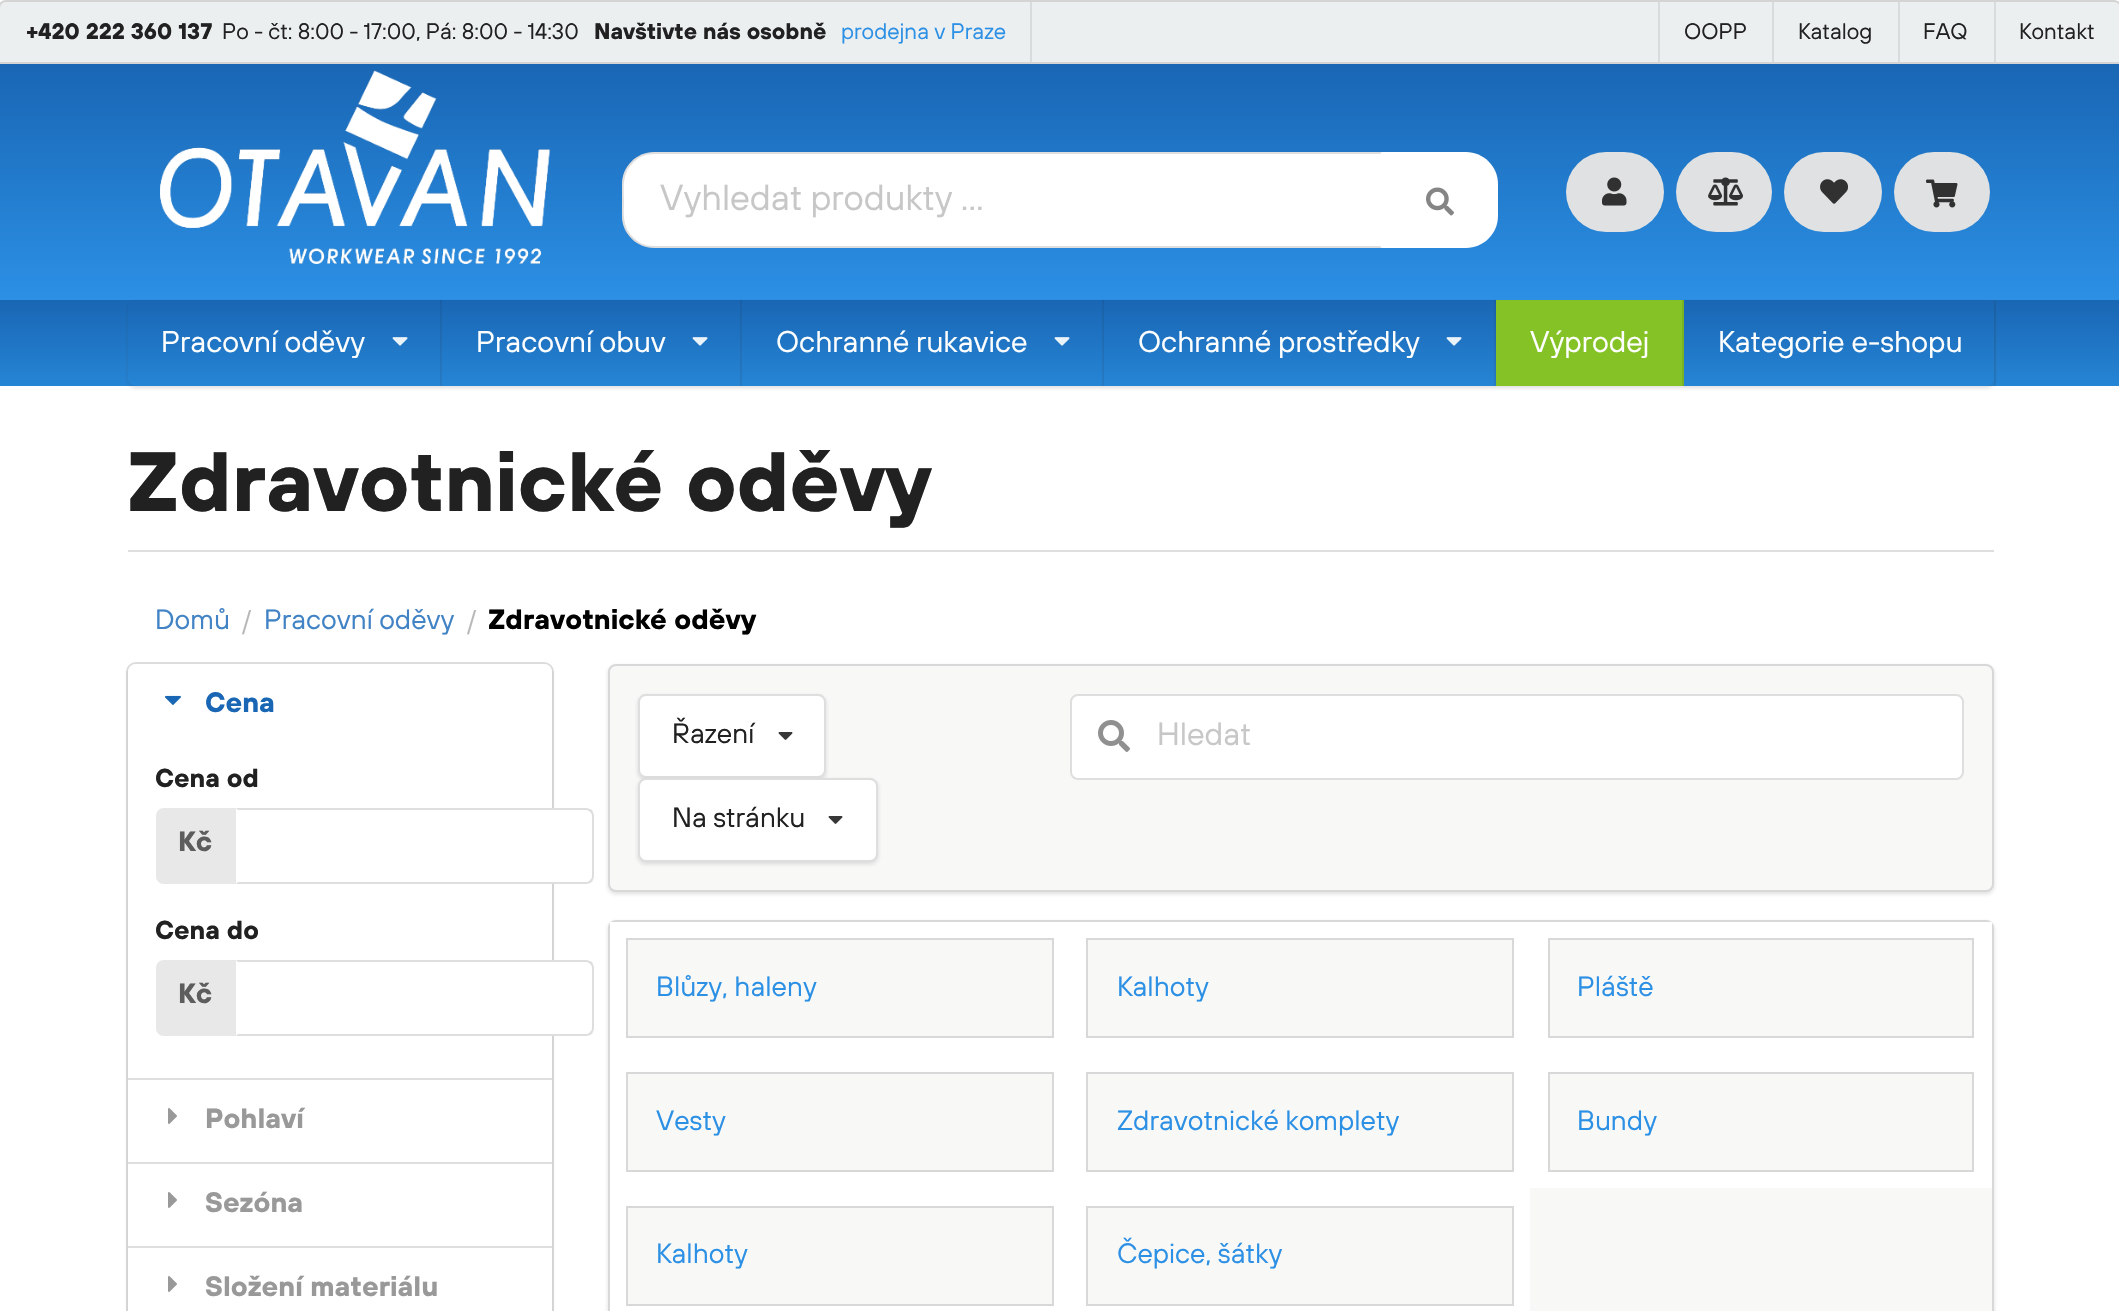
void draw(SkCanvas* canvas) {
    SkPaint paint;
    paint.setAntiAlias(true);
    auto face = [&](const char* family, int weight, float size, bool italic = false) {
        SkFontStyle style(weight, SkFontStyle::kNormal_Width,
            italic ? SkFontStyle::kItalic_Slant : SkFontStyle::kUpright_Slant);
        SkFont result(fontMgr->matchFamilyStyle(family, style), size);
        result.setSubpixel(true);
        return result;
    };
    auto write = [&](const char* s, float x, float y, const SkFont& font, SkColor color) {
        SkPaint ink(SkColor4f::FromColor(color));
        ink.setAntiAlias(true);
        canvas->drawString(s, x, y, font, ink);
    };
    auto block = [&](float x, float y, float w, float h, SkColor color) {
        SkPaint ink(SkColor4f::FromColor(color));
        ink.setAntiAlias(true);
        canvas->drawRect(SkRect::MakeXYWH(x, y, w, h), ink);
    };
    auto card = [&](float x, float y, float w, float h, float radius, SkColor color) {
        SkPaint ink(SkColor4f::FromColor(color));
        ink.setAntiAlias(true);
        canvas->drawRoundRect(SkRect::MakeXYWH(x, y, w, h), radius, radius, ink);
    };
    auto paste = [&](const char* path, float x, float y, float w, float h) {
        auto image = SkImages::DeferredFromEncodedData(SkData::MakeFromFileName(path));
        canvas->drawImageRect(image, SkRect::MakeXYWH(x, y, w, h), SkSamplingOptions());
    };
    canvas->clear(SK_ColorWHITE);
    paint.setColor(SkColorSetRGB(236, 239, 240));
    canvas->drawPath(SkPathBuilder().moveTo(6, 1).lineTo(2114, 1).cubicTo(2118, 1, 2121, 4, 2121, 8).lineTo(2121, 63).lineTo(-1, 63).lineTo(-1, 8).cubicTo(-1, 4, 2, 1, 6, 1).close().detach(), paint);
    paint.setStyle(SkPaint::kStroke_Style);
    paint.setStrokeWidth(2);
    paint.setColor(SkColorSetRGB(212, 212, 213));
    canvas->drawPath(SkPathBuilder().moveTo(6, 1).lineTo(2114, 1).cubicTo(2118, 1, 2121, 4, 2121, 8).lineTo(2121, 63).lineTo(-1, 63).lineTo(-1, 8).cubicTo(-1, 4, 2, 1, 6, 1).close().detach(), paint);
    auto kFont1 = face("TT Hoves", 700, 22.4f);
    write("+420 222 360 137", 26, 39, kFont1, SkColorSetRGB(33, 33, 33));
    auto kFont2 = face("TT Hoves", 400, 22.4f);
    write("Po - čt: 8:00 - 17:00, Pá: 8:00 - 14:30", 222, 39, kFont2, SkColorSetRGB(33, 33, 33));
    write("Navštivte nás osobně", 594, 39, kFont1, SkColorSetRGB(33, 33, 33));
    write("prodejna v Praze", 841, 39, kFont2, SkColorSetRGB(44, 144, 229));
    block(1030, 2, 2, 60, SkColorSetRGB(216, 219, 220));
    block(1658, 2, 2, 60, SkColorSetRGB(216, 219, 220));
    write("OOPP", 1684, 39, kFont2, SkColorSetRGB(33, 33, 33));
    block(1772, 2, 2, 60, SkColorSetRGB(216, 219, 220));
    write("Katalog", 1798, 39, kFont2, SkColorSetRGB(33, 33, 33));
    block(1898, 2, 2, 60, SkColorSetRGB(216, 219, 220));
    write("FAQ", 1923, 39, kFont2, SkColorSetRGB(33, 33, 33));
    block(1994, 2, 2, 60, SkColorSetRGB(216, 219, 220));
    write("Kontakt", 2019, 39, kFont2, SkColorSetRGB(33, 33, 33));
    paint.setStyle(SkPaint::kFill_Style);
    {
        const SkColor colors[] = {SkColorSetRGB(25, 102, 180), SkColorSetRGB(44, 144, 229)};
        const float stops[] = {0, 1};
        const SkPoint ends[] = {{1060, 64}, {1060, 300}};
        paint.setShader(SkGradientShader::MakeLinear(ends, colors, stops, 2, SkTileMode::kClamp));
        paint.setAlpha(255);
    }
    canvas->drawRect(SkRect::MakeXYWH(0, 64, 2119, 236), paint);
    paste("pic1.png", 160, 70, 391, 195);
    paint.setShader(nullptr);
    paint.setColor(SK_ColorWHITE);
    canvas->drawPath(SkPathBuilder().moveTo(654, 152).lineTo(1382, 152).lineTo(1382, 248).lineTo(654, 248).cubicTo(636.5f, 248, 622, 233.5f, 622, 216).lineTo(622, 184).cubicTo(622, 166.5f, 636.5f, 152, 654, 152).close().detach(), paint);
    paint.setColor(SkColorSetARGB(38, 34, 36, 38));
    canvas->drawPath(SkPathBuilder().moveTo(654, 152).cubicTo(645, 152, 637, 156, 631, 161).lineTo(633, 163).cubicTo(638, 157, 646, 154, 654, 154).lineTo(1380, 154).lineTo(1382, 152).close().detach(), paint);
    canvas->drawPath(SkPathBuilder().moveTo(1382, 248).lineTo(1380, 246).lineTo(654, 246).cubicTo(646, 246, 638, 243, 633, 237).lineTo(631, 239).cubicTo(637, 244, 645, 248, 654, 248).close().detach(), paint);
    canvas->drawPath(SkPathBuilder().moveTo(622, 184).lineTo(622, 216).cubicTo(622, 225, 626, 233, 631, 239).lineTo(633, 237).cubicTo(622, 227, 624, 213, 624, 200).cubicTo(624, 187, 622, 173, 633, 163).lineTo(631, 161).cubicTo(626, 167, 622, 175, 622, 184).close().detach(), paint);
    auto kFont3 = face("TT Hoves", 400, 36);
    write("Vyhledat produkty ...", 660, 210, kFont3, SkColorSetRGB(199, 199, 199));
    paint.setColor(SK_ColorWHITE);
    canvas->drawPath(SkPathBuilder().moveTo(1382, 152).lineTo(1466, 152).cubicTo(1483.5f, 152, 1498, 166.5f, 1498, 184).lineTo(1498, 216).cubicTo(1498, 233.5f, 1483.5f, 248, 1466, 248).lineTo(1382, 248).close().detach(), paint);
    paste("pic2.png", 1426, 187, 28, 29);
    card(1566, 152, 98, 80, 40, SkColorSetRGB(224, 225, 226));
    paste("pic3.png", 1602, 177, 25, 29);
    card(1676, 152, 96, 80, 40, SkColorSetRGB(224, 225, 226));
    paste("pic4.png", 1708, 177, 35, 29);
    card(1784, 152, 98, 80, 40, SkColorSetRGB(224, 225, 226));
    paste("pic5.png", 1820, 179, 29, 25);
    card(1894, 152, 96, 80, 40, SkColorSetRGB(224, 225, 226));
    paste("pic6.png", 1926, 179, 32, 29);
    {
        const SkColor colors[] = {SkColorSetRGB(25, 102, 180), SkColorSetRGB(38, 133, 213)};
        const float stops[] = {0, 1};
        const SkPoint ends[] = {{1060, 300}, {1060, 386}};
        paint.setShader(SkGradientShader::MakeLinear(ends, colors, stops, 2, SkTileMode::kClamp));
        paint.setAlpha(255);
    }
    canvas->drawRect(SkRect::MakeXYWH(0, 300, 2119, 86), paint);
    {
        const SkColor colors[] = {SkColorSetRGB(26, 95, 166), SkColorSetRGB(38, 123, 196)};
        const float stops[] = {0, 1};
        const SkPoint ends[] = {{1060, 300}, {1060, 386}};
        paint.setShader(SkGradientShader::MakeLinear(ends, colors, stops, 2, SkTileMode::kClamp));
        paint.setAlpha(255);
    }
    canvas->drawRect(SkRect::MakeXYWH(1494, 300, 2, 86), paint);
    canvas->drawRect(SkRect::MakeXYWH(1102, 300, 2, 86), paint);
    canvas->drawRect(SkRect::MakeXYWH(740, 300, 2, 86), paint);
    canvas->drawRect(SkRect::MakeXYWH(440, 300, 2, 86), paint);
    canvas->save();
    canvas->clipPath(SkPathBuilder(SkPathFillType::kEvenOdd).moveTo(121, 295).lineTo(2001, 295).lineTo(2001, 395).lineTo(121, 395).close().moveTo(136, 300).lineTo(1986, 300).cubicTo(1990.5f, 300, 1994, 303.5f, 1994, 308).lineTo(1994, 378).cubicTo(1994, 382.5f, 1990.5f, 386, 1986, 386).lineTo(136, 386).cubicTo(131.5f, 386, 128, 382.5f, 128, 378).lineTo(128, 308).cubicTo(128, 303.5f, 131.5f, 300, 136, 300).close().detach(), true);
    paint.setShader(nullptr);
    paint.setColor(SkColorSetARGB(38, 34, 36, 38));
    paint.setMaskFilter(SkMaskFilter::MakeBlur(kNormal_SkBlurStyle, 2));
    canvas->drawRoundRect(SkRect::MakeXYWH(128, 302, 1866, 86), 8, 8, paint);
    paint.setMaskFilter(nullptr);
    canvas->restore();
    auto kFont4 = face("TT Hoves", 400, 30);
    write("Pracovní oděvy", 161, 352, kFont4, SK_ColorWHITE);
    paste("pic7.png", 392, 337, 16, 9);
    write("Pracovní obuv", 476, 352, kFont4, SK_ColorWHITE);
    paste("pic7.png", 692, 337, 16, 9);
    write("Ochranné rukavice", 776, 352, kFont4, SK_ColorWHITE);
    paste("pic7.png", 1054, 337, 16, 9);
    write("Ochranné prostředky", 1138, 352, kFont4, SK_ColorWHITE);
    paste("pic7.png", 1446, 337, 16, 9);
    block(1496, 300, 186, 86, SkColorSetRGB(132, 194, 37));
    write("Výprodej", 1530, 352, kFont4, SK_ColorWHITE);
    block(1682, 300, 2, 86, SkColorSetRGB(122, 178, 37));
    write("Kategorie e-shopu", 1718, 352, kFont4, SK_ColorWHITE);
    block(1994, 300, 2, 86, SkColorSetARGB(26, 34, 36, 38));
    block(128, 550, 1866, 2, SkColorSetRGB(222, 222, 222));
    auto kFont5 = face("TT Hoves", 700, 84);
    write("Zdravotnické oděvy", 127, 511, kFont5, SkColorSetRGB(33, 33, 33));
    auto kFont6 = face("TT Hoves", 400, 28);
    write("Domů", 155, 629, kFont6, SkColorSetRGB(65, 131, 196));
    auto kFont7 = face("TT Hoves", 400, 26);
    write("/", 242, 629, kFont7, SkColorSetRGB(184, 184, 184));
    write("Pracovní oděvy", 264, 629, kFont6, SkColorSetRGB(65, 131, 196));
    write("/", 467, 629, kFont7, SkColorSetRGB(184, 184, 184));
    auto kFont8 = face("TT Hoves", 700, 28);
    write("Zdravotnické oděvy", 488, 629, kFont8, SK_ColorBLACK);
    paint.setStyle(SkPaint::kStroke_Style);
    paint.setColor(SkColorSetRGB(222, 222, 222));
    canvas->drawRoundRect(SkRect::MakeXYWH(127, 663, 426, 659), 9, 9, paint);
    paint.setStyle(SkPaint::kFill_Style);
    paint.setColor(SkColorSetARGB(38, 34, 36, 38));
    paint.setMaskFilter(SkMaskFilter::MakeBlur(kNormal_SkBlurStyle, 2));
    canvas->drawRoundRect(SkRect::MakeXYWH(128, 666, 424, 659), 8, 8, paint);
    paint.setMaskFilter(nullptr);
    card(128, 664, 424, 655, 8, SK_ColorWHITE);
    paste("pic8.png", 165, 695, 16, 10);
    write("Cena", 205, 712, kFont8, SkColorSetRGB(25, 102, 180));
    auto kFont9 = face("TT Hoves", 700, 26);
    write("Cena od", 155, 787, kFont9, SkColorSetRGB(33, 33, 33));
    paint.setColor(SkColorSetRGB(232, 232, 232));
    canvas->drawPath(SkPathBuilder().moveTo(164, 808).lineTo(236, 808).lineTo(236, 884).lineTo(164, 884).cubicTo(159.5f, 884, 156, 880.5f, 156, 876).lineTo(156, 816).cubicTo(156, 811.5f, 159.5f, 808, 164, 808).close().detach(), paint);
    write("Kč", 178, 851, kFont8, SkColorSetRGB(93, 93, 93));
    paint.setColor(SK_ColorWHITE);
    canvas->drawPath(SkPathBuilder().moveTo(236, 808).lineTo(586, 808).cubicTo(590.5f, 808, 594, 811.5f, 594, 816).lineTo(594, 876).cubicTo(594, 880.5f, 590.5f, 884, 586, 884).lineTo(236, 884).close().detach(), paint);
    paint.setColor(SkColorSetRGB(222, 222, 222));
    canvas->drawPath(SkPathBuilder().moveTo(236, 808).lineTo(238, 810).lineTo(586, 810).cubicTo(588, 810, 589, 811, 590, 812).lineTo(592, 810).cubicTo(590, 809, 588, 808, 586, 808).close().detach(), paint);
    paint.setColor(SkColorSetARGB(38, 34, 36, 38));
    canvas->drawPath(SkPathBuilder().moveTo(594, 876).lineTo(594, 816).cubicTo(594, 814, 593, 812, 592, 810).lineTo(590, 812).cubicTo(591, 813, 592, 814, 592, 816).lineTo(592, 876).cubicTo(592, 878, 591, 879, 590, 880).lineTo(592, 882).cubicTo(593, 880, 594, 878, 594, 876).close().detach(), paint);
    canvas->drawPath(SkPathBuilder().moveTo(586, 884).cubicTo(588, 884, 590, 883, 592, 882).lineTo(590, 880).cubicTo(589, 881, 588, 882, 586, 882).lineTo(238, 882).lineTo(236, 884).close().detach(), paint);
    write("Cena do", 155, 939, kFont9, SkColorSetRGB(33, 33, 33));
    paint.setColor(SkColorSetRGB(232, 232, 232));
    canvas->drawPath(SkPathBuilder().moveTo(164, 960).lineTo(236, 960).lineTo(236, 1036).lineTo(164, 1036).cubicTo(159.5f, 1036, 156, 1032.5f, 156, 1028).lineTo(156, 968).cubicTo(156, 963.5f, 159.5f, 960, 164, 960).close().detach(), paint);
    write("Kč", 178, 1003, kFont8, SkColorSetRGB(93, 93, 93));
    paint.setColor(SK_ColorWHITE);
    canvas->drawPath(SkPathBuilder().moveTo(236, 960).lineTo(586, 960).cubicTo(590.5f, 960, 594, 963.5f, 594, 968).lineTo(594, 1028).cubicTo(594, 1032.5f, 590.5f, 1036, 586, 1036).lineTo(236, 1036).close().detach(), paint);
    paint.setColor(SkColorSetRGB(222, 222, 222));
    canvas->drawPath(SkPathBuilder().moveTo(236, 960).lineTo(238, 962).lineTo(586, 962).cubicTo(588, 962, 589, 963, 590, 964).lineTo(592, 962).cubicTo(590, 961, 588, 960, 586, 960).close().detach(), paint);
    paint.setColor(SkColorSetARGB(38, 34, 36, 38));
    canvas->drawPath(SkPathBuilder().moveTo(594, 1028).lineTo(594, 968).cubicTo(594, 966, 593, 964, 592, 962).lineTo(590, 964).cubicTo(591, 965, 592, 966, 592, 968).lineTo(592, 1028).cubicTo(592, 1030, 591, 1031, 590, 1032).lineTo(592, 1034).cubicTo(593, 1032, 594, 1030, 594, 1028).close().detach(), paint);
    canvas->drawPath(SkPathBuilder().moveTo(586, 1036).cubicTo(588, 1036, 590, 1035, 592, 1034).lineTo(590, 1032).cubicTo(589, 1033, 588, 1034, 586, 1034).lineTo(238, 1034).lineTo(236, 1036).close().detach(), paint);
    block(128, 1078, 424, 2, SkColorSetRGB(222, 222, 222));
    paste("pic9.png", 168, 1108, 9, 16);
    write("Pohlaví", 205, 1128, kFont8, SkColorSetRGB(153, 153, 153));
    block(128, 1162, 424, 2, SkColorSetRGB(222, 222, 222));
    paste("pic9.png", 168, 1192, 9, 16);
    write("Sezóna", 205, 1212, kFont8, SkColorSetRGB(153, 153, 153));
    block(128, 1246, 424, 2, SkColorSetRGB(222, 222, 222));
    paste("pic9.png", 168, 1276, 9, 16);
    write("Složení materiálu", 205, 1296, kFont8, SkColorSetRGB(153, 153, 153));
    paint.setMaskFilter(SkMaskFilter::MakeBlur(kNormal_SkBlurStyle, 2));
    canvas->drawRoundRect(SkRect::MakeXYWH(608, 666, 1386, 228), 8, 8, paint);
    paint.setMaskFilter(nullptr);
    card(608, 664, 1386, 228, 8, SkColorSetRGB(248, 248, 247));
    paint.setStyle(SkPaint::kStroke_Style);
    canvas->drawRoundRect(SkRect::MakeXYWH(609, 665, 1384, 226), 7, 7, paint);
    paint.setStyle(SkPaint::kFill_Style);
    paint.setMaskFilter(SkMaskFilter::MakeBlur(kNormal_SkBlurStyle, 2));
    canvas->drawRoundRect(SkRect::MakeXYWH(638, 696, 188, 84), 8, 8, paint);
    paint.setMaskFilter(nullptr);
    card(638, 694, 188, 84, 8, SK_ColorWHITE);
    paint.setStyle(SkPaint::kStroke_Style);
    canvas->drawRoundRect(SkRect::MakeXYWH(639, 695, 186, 82), 7, 7, paint);
    write("Řazení", 672, 743, kFont6, SkColorSetRGB(33, 33, 33));
    paste("pic10.png", 778, 732, 15, 8);
    paint.setStyle(SkPaint::kFill_Style);
    paint.setMaskFilter(SkMaskFilter::MakeBlur(kNormal_SkBlurStyle, 2));
    canvas->drawRoundRect(SkRect::MakeXYWH(638, 780, 240, 84), 8, 8, paint);
    paint.setMaskFilter(nullptr);
    card(638, 778, 240, 84, 8, SK_ColorWHITE);
    paint.setStyle(SkPaint::kStroke_Style);
    canvas->drawRoundRect(SkRect::MakeXYWH(639, 779, 238, 82), 7, 7, paint);
    write("Na stránku", 672, 827, kFont6, SkColorSetRGB(33, 33, 33));
    paste("pic10.png", 828, 816, 15, 8);
    card(1070, 694, 894, 86, 8, SK_ColorWHITE);
    canvas->drawRoundRect(SkRect::MakeXYWH(1071, 695, 892, 84), 7, 7, paint);
    paste("pic11.png", 1098, 720, 32, 32);
    auto kFont10 = face("TT Hoves", 400, 32);
    write("Hledat", 1157, 745, kFont10, SkColorSetRGB(199, 199, 199));
    paint.setStyle(SkPaint::kFill_Style);
    paint.setMaskFilter(SkMaskFilter::MakeBlur(kNormal_SkBlurStyle, 2));
    canvas->drawRoundRect(SkRect::MakeXYWH(608, 922, 1386, 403), 8, 8, paint);
    paint.setMaskFilter(nullptr);
    card(608, 920, 1386, 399, 8, SkColorSetRGB(248, 248, 247));
    paint.setStyle(SkPaint::kStroke_Style);
    canvas->drawRoundRect(SkRect::MakeXYWH(609, 921, 1384, 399), 7, 7, paint);
    block(610, 922, 1382, 134, SK_ColorWHITE);
    paint.setStyle(SkPaint::kFill_Style);
    paint.setColor(SkColorSetRGB(248, 248, 247));
    canvas->drawRect(SkRect::MakeXYWH(627, 939, 426, 98), paint);
    paint.setStyle(SkPaint::kStroke_Style);
    paint.setColor(SkColorSetRGB(216, 216, 216));
    canvas->drawRect(SkRect::MakeXYWH(627, 939, 426, 98), paint);
    write("Blůzy, haleny", 656, 996, kFont6, SkColorSetRGB(44, 144, 229));
    paint.setStyle(SkPaint::kFill_Style);
    paint.setColor(SkColorSetRGB(248, 248, 247));
    canvas->drawRect(SkRect::MakeXYWH(1087, 939, 426, 98), paint);
    paint.setStyle(SkPaint::kStroke_Style);
    paint.setColor(SkColorSetRGB(216, 216, 216));
    canvas->drawRect(SkRect::MakeXYWH(1087, 939, 426, 98), paint);
    write("Kalhoty", 1117, 996, kFont6, SkColorSetRGB(44, 144, 229));
    paint.setStyle(SkPaint::kFill_Style);
    paint.setColor(SkColorSetRGB(248, 248, 247));
    canvas->drawRect(SkRect::MakeXYWH(1549, 939, 424, 98), paint);
    paint.setStyle(SkPaint::kStroke_Style);
    paint.setColor(SkColorSetRGB(216, 216, 216));
    canvas->drawRect(SkRect::MakeXYWH(1549, 939, 424, 98), paint);
    write("Pláště", 1577, 996, kFont6, SkColorSetRGB(44, 144, 229));
    block(610, 1056, 1382, 132, SK_ColorWHITE);
    paint.setStyle(SkPaint::kFill_Style);
    paint.setColor(SkColorSetRGB(248, 248, 247));
    canvas->drawRect(SkRect::MakeXYWH(627, 1073, 426, 98), paint);
    paint.setStyle(SkPaint::kStroke_Style);
    paint.setColor(SkColorSetRGB(216, 216, 216));
    canvas->drawRect(SkRect::MakeXYWH(627, 1073, 426, 98), paint);
    write("Vesty", 656, 1130, kFont6, SkColorSetRGB(44, 144, 229));
    paint.setStyle(SkPaint::kFill_Style);
    paint.setColor(SkColorSetRGB(248, 248, 247));
    canvas->drawRect(SkRect::MakeXYWH(1087, 1073, 426, 98), paint);
    paint.setStyle(SkPaint::kStroke_Style);
    paint.setColor(SkColorSetRGB(216, 216, 216));
    canvas->drawRect(SkRect::MakeXYWH(1087, 1073, 426, 98), paint);
    write("Zdravotnické komplety", 1117, 1130, kFont6, SkColorSetRGB(44, 144, 229));
    paint.setStyle(SkPaint::kFill_Style);
    paint.setColor(SkColorSetRGB(248, 248, 247));
    canvas->drawRect(SkRect::MakeXYWH(1549, 1073, 424, 98), paint);
    paint.setStyle(SkPaint::kStroke_Style);
    paint.setColor(SkColorSetRGB(216, 216, 216));
    canvas->drawRect(SkRect::MakeXYWH(1549, 1073, 424, 98), paint);
    write("Bundy", 1577, 1130, kFont6, SkColorSetRGB(44, 144, 229));
    block(610, 1188, 920, 123, SK_ColorWHITE);
    paint.setStyle(SkPaint::kFill_Style);
    paint.setColor(SkColorSetRGB(248, 248, 247));
    canvas->drawRect(SkRect::MakeXYWH(627, 1207, 426, 98), paint);
    paint.setStyle(SkPaint::kStroke_Style);
    paint.setColor(SkColorSetRGB(216, 216, 216));
    canvas->drawRect(SkRect::MakeXYWH(627, 1207, 426, 98), paint);
    write("Kalhoty", 656, 1263, kFont6, SkColorSetRGB(44, 144, 229));
    paint.setStyle(SkPaint::kFill_Style);
    paint.setColor(SkColorSetRGB(248, 248, 247));
    canvas->drawRect(SkRect::MakeXYWH(1087, 1207, 426, 98), paint);
    paint.setStyle(SkPaint::kStroke_Style);
    paint.setColor(SkColorSetRGB(216, 216, 216));
    canvas->drawRect(SkRect::MakeXYWH(1087, 1207, 426, 98), paint);
    write("Čepice, šátky", 1117, 1263, kFont6, SkColorSetRGB(44, 144, 229));
}
